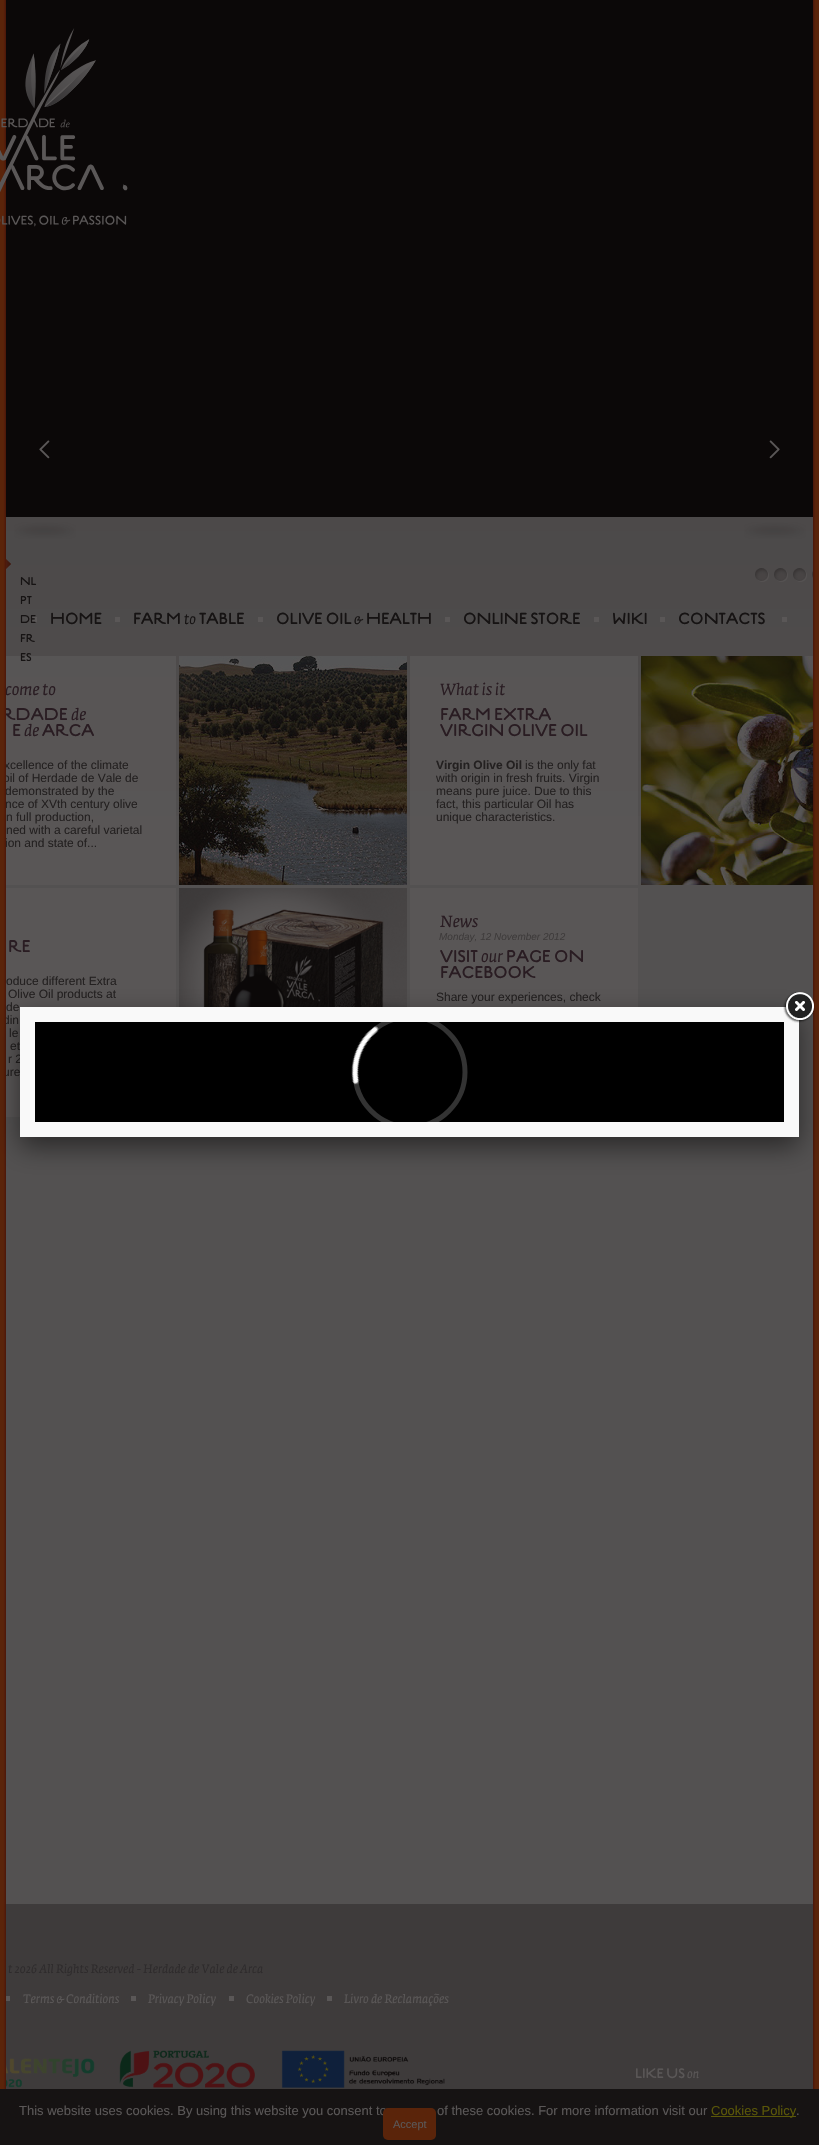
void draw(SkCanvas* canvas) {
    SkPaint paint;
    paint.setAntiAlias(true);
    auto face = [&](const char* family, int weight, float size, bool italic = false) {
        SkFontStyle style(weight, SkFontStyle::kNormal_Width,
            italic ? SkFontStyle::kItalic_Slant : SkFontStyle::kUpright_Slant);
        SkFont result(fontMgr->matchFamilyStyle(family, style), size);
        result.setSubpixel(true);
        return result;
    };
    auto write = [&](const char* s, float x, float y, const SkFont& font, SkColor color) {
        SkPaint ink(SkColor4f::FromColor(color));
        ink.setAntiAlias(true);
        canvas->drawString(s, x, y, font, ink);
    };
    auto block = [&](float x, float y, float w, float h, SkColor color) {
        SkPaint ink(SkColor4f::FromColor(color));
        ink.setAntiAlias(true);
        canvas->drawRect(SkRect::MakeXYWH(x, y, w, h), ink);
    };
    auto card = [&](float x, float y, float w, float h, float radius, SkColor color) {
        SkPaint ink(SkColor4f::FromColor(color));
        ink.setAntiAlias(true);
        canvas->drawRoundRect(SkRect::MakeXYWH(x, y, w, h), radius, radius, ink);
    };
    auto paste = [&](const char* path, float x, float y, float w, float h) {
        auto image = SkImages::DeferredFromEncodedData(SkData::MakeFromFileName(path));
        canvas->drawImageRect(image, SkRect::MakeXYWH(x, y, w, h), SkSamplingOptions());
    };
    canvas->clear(SkColorSetRGB(83, 81, 81));
    paste("pic1.png", 6, 517, 807, 299);
    block(6, 656, 170, 229, SkColorSetARGB(196, 90, 87, 87));
    auto kFont1 = face("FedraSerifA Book", 400, 16, true);
    write("come to", 5, 695, kFont1, SkColorSetRGB(41, 28, 34));
    auto kFont2 = face("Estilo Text", 700, 18);
    write("RDADE", 2, 720, kFont2, SkColorSetRGB(41, 28, 34));
    auto kFont3 = face("Liberation Sans", 400, 12);
    write("xcellence of the climate", 4, 769, kFont3, SkColorSetRGB(35, 32, 32));
    write("oil of Herdade de Vale de", 3, 782, kFont3, SkColorSetRGB(35, 32, 32));
    write("demonstrated by the", 5, 795, kFont3, SkColorSetRGB(35, 32, 32));
    write("nce of XVth century olive", 5, 808, kFont3, SkColorSetRGB(35, 32, 32));
    write("ion and state of...", 5, 847, kFont3, SkColorSetRGB(35, 32, 32));
    block(6, 888, 170, 229, SkColorSetRGB(89, 86, 86));
    write("din", 3, 1024, kFont3, SkColorSetRGB(35, 32, 32));
    write("ure", 3, 1076, kFont3, SkColorSetRGB(35, 32, 32));
    block(6, 1904, 807, 185, SkColorSetRGB(62, 59, 59));
    block(5, 1996, 5, 5, SkColorSetRGB(90, 87, 87));
    paste("pic2.png", 0, 0, 6, 2089);
    block(6, 0, 807, 517, SkColorSetRGB(11, 8, 8));
    paste("pic3.png", 39, 440, 11, 19);
    paste("pic4.png", 14, 522, 62, 17);
    paste("pic5.png", 769, 440, 11, 19);
    paste("pic4.png", 744, 522, 62, 17);
    paste("pic6.png", 755, 568, 14, 14);
    paste("pic6.png", 774, 568, 14, 14);
    paste("pic6.png", 793, 568, 14, 14);
    paste("pic7.png", 812, 571, 1, 7);
    paste("pic8.png", 813, 0, 6, 2089);
    paste("pic9.png", 0, 28, 128, 199);
    paste("pic10.png", 6, 559, 5, 10);
    auto kFont4 = face("Estilo Text", 700, 12);
    write("NL", 20, 585, kFont4, SkColorSetRGB(22, 19, 19));
    write("PT", 20, 604, kFont4, SkColorSetRGB(22, 19, 19));
    block(32, 617, 5, 5, SkColorSetRGB(90, 87, 87));
    write("DE", 20, 623, kFont4, SkColorSetRGB(22, 19, 19));
    write("FR", 20, 642, kFont4, SkColorSetRGB(22, 19, 19));
    write("ES", 20, 661, kFont4, SkColorSetRGB(22, 19, 19));
    auto kFont5 = face("Estilo Text", 700, 17);
    write("HOME", 50, 624, kFont5, SkColorSetRGB(22, 19, 19));
    block(115, 617, 5, 5, SkColorSetRGB(90, 87, 87));
    write("FARM", 133, 624, kFont5, SkColorSetRGB(22, 19, 19));
    auto kFont6 = face("FedraSerifA Book", 400, 14, true);
    write("to", 184, 624, kFont6, SkColorSetRGB(22, 19, 19));
    write("TABLE", 199, 624, kFont5, SkColorSetRGB(22, 19, 19));
    block(258, 617, 5, 5, SkColorSetRGB(90, 87, 87));
    write("OLIVE OIL", 276, 624, kFont5, SkColorSetRGB(22, 19, 19));
    write("&", 354, 624, kFont6, SkColorSetRGB(22, 19, 19));
    write("HEALTH", 366, 624, kFont5, SkColorSetRGB(22, 19, 19));
    block(445, 617, 5, 5, SkColorSetRGB(90, 87, 87));
    write("ONLINE STORE", 463, 624, kFont5, SkColorSetRGB(22, 19, 19));
    block(594, 617, 5, 5, SkColorSetRGB(90, 87, 87));
    write("WIKI", 612, 624, kFont5, SkColorSetRGB(22, 19, 19));
    block(660, 617, 5, 5, SkColorSetRGB(90, 87, 87));
    write("CONTACTS", 678, 624, kFont5, SkColorSetRGB(22, 19, 19));
    block(782, 617, 5, 5, SkColorSetRGB(90, 87, 87));
    write("de", 71, 720, kFont1, SkColorSetRGB(41, 28, 34));
    write("E", 12, 736, kFont2, SkColorSetRGB(41, 28, 34));
    write("de", 24, 736, kFont1, SkColorSetRGB(41, 28, 34));
    write("ARCA", 42, 736, kFont2, SkColorSetRGB(41, 28, 34));
    write("n full production,", 6, 821, kFont3, SkColorSetRGB(35, 32, 32));
    write("ned with a careful varietal", 6, 834, kFont3, SkColorSetRGB(35, 32, 32));
    paste("pic11.png", 179, 656, 228, 229);
    block(410, 656, 228, 229, SkColorSetARGB(196, 90, 87, 87));
    write("What is it", 440, 695, kFont1, SkColorSetRGB(41, 28, 34));
    write("FARM EXTRA", 440, 720, kFont2, SkColorSetRGB(41, 28, 34));
    write("VIRGIN OLIVE OIL", 440, 736, kFont2, SkColorSetRGB(41, 28, 34));
    auto kFont7 = face("Liberation Sans", 700, 12);
    write("Virgin Olive Oil", 436, 769, kFont7, SkColorSetRGB(35, 32, 32));
    write("is the only fat", 525, 769, kFont3, SkColorSetRGB(35, 32, 32));
    write("with origin in fresh fruits. Virgin", 436, 782, kFont3, SkColorSetRGB(35, 32, 32));
    write("means pure juice. Due to this", 436, 795, kFont3, SkColorSetRGB(35, 32, 32));
    write("fact, this particular Oil has", 436, 808, kFont3, SkColorSetRGB(35, 32, 32));
    write("unique characteristics.", 436, 821, kFont3, SkColorSetRGB(35, 32, 32));
    paste("pic12.png", 641, 656, 172, 229);
    write("RE", 8, 952, kFont2, SkColorSetRGB(41, 28, 34));
    write("oduce different Extra", 6, 985, kFont3, SkColorSetRGB(35, 32, 32));
    write("Olive Oil products at", 8, 998, kFont3, SkColorSetRGB(35, 32, 32));
    write("de", 6, 1011, kFont3, SkColorSetRGB(35, 32, 32));
    write("le", 9, 1037, kFont3, SkColorSetRGB(35, 32, 32));
    write("et", 10, 1050, kFont3, SkColorSetRGB(35, 32, 32));
    write("r 2", 8, 1063, kFont3, SkColorSetRGB(35, 32, 32));
    paste("pic13.png", 179, 888, 228, 119);
    block(410, 888, 228, 119, SkColorSetRGB(89, 86, 86));
    write("News", 440, 927, kFont1, SkColorSetRGB(41, 28, 34));
    auto kFont8 = face("Liberation Sans", 400, 10, true);
    write("Monday, 12 November 2012", 439, 940, kFont8, SkColorSetRGB(62, 59, 59));
    write("VISIT", 440, 962, kFont2, SkColorSetRGB(41, 28, 34));
    write("our", 481, 962, kFont1, SkColorSetRGB(41, 28, 34));
    write("PAGE ON", 506, 962, kFont2, SkColorSetRGB(41, 28, 34));
    write("FACEBOOK", 440, 978, kFont2, SkColorSetRGB(41, 28, 34));
    write("Share your experiences, check", 436, 1001, kFont3, SkColorSetRGB(35, 32, 32));
    paint.setColor(SkColorSetARGB(128, 0, 0, 0));
    paint.setMaskFilter(SkMaskFilter::MakeBlur(kNormal_SkBlurStyle, 12.5f));
    canvas->drawRect(SkRect::MakeXYWH(20, 1017, 779, 130), paint);
    paint.setMaskFilter(nullptr);
    block(20, 1007, 779, 130, SkColorSetRGB(249, 249, 249));
    paste("pic15.png", 35, 1022, 749, 100);
    paste("pic14.png", 783, 991, 32, 32);
    auto kFont9 = face("FedraSerifA Book", 400, 12, true);
    write("t 2026 All Rights Reserved - Herdade de Vale de Arca", 8, 1973, kFont9, SkColorSetRGB(46, 43, 44));
    write("Terms & Conditions", 23, 2003, kFont9, SkColorSetRGB(90, 87, 87));
    block(131, 1996, 5, 5, SkColorSetRGB(90, 87, 87));
    write("Privacy Policy", 148, 2003, kFont9, SkColorSetRGB(90, 87, 87));
    block(229, 1996, 5, 5, SkColorSetRGB(90, 87, 87));
    write("Cookies Policy", 246, 2003, kFont9, SkColorSetRGB(90, 87, 87));
    block(327, 1996, 5, 5, SkColorSetRGB(90, 87, 87));
    write("Livro de Reclamações", 344, 2003, kFont9, SkColorSetRGB(90, 87, 87));
    paste("pic16.png", 6, 2050, 439, 38);
    auto kFont10 = face("Estilo Text", 700, 14.5f);
    write("LIKE US", 635, 2078, kFont10, SkColorSetRGB(90, 87, 87));
    write("on", 687, 2078, kFont9, SkColorSetRGB(90, 87, 87));
    block(0, 2089, 819, 56, SkColorSetRGB(22, 19, 19));
    auto kFont11 = face("Liberation Sans", 400, 13);
    write("This website uses cookies. By using this website you consent to", 19, 2115, kFont11, SkColorSetRGB(90, 87, 87));
    write("of these cookies. For more information visit our", 437, 2115, kFont11, SkColorSetRGB(90, 87, 87));
    block(711, 2116, 85, 1, SkColorSetRGB(90, 87, 8));
    write("Cookies Policy", 711, 2115, kFont11, SkColorSetRGB(90, 87, 8));
    write(".", 796, 2115, kFont11, SkColorSetRGB(90, 87, 87));
    card(383, 2108, 53, 32, 5, SkColorSetRGB(90, 36, 10));
    auto kFont12 = face("Liberation Sans", 400, 11);
    write("Accept", 393, 2128, kFont12, SkColorSetRGB(90, 87, 87));
}
